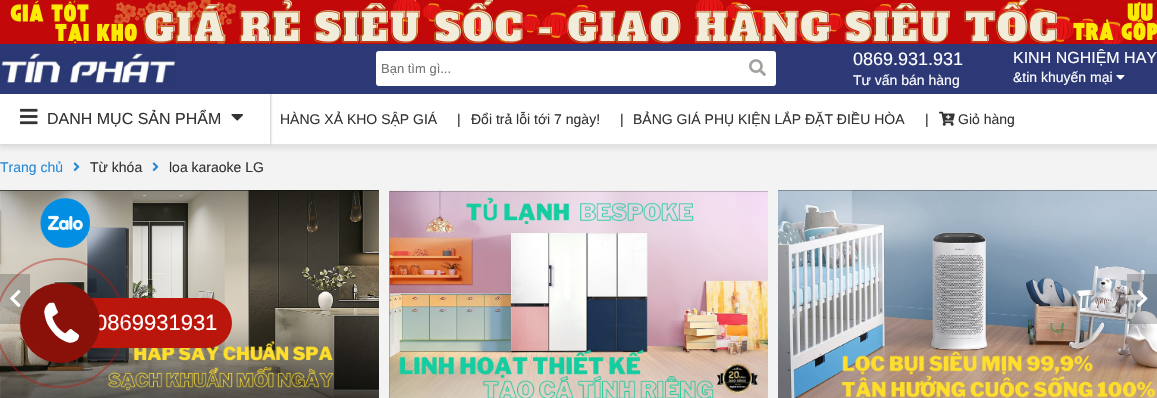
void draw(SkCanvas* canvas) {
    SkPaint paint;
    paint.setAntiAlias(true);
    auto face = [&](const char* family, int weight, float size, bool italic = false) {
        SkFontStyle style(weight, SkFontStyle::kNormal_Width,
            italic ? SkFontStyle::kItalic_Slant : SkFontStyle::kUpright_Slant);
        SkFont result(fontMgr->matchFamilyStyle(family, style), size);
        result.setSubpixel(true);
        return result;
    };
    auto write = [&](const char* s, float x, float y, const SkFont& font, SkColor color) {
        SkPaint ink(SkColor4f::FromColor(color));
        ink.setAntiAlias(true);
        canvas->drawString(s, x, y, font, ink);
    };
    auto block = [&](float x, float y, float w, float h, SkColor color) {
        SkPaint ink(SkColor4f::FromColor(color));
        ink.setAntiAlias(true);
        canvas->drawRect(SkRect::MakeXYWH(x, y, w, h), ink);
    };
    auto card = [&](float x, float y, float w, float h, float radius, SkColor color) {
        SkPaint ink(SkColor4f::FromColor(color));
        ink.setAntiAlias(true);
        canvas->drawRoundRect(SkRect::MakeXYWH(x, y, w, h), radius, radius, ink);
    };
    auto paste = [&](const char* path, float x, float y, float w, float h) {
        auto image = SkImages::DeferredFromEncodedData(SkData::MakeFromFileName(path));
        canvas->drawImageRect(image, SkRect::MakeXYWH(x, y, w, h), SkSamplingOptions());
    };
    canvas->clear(SkColorSetRGB(243, 243, 243));
    block(0, 0, 10, 44, SkColorSetRGB(194, 8, 8));
    paste("pic1.png", 10, 0, 1147, 44);
    paint.setColor(SkColorSetRGB(225, 225, 225));
    paint.setMaskFilter(SkMaskFilter::MakeBlur(kNormal_SkBlurStyle, 2));
    canvas->drawRect(SkRect::MakeXYWH(0, 97, 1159, 52), paint);
    paint.setMaskFilter(nullptr);
    block(0, 94, 1157, 50, SK_ColorWHITE);
    canvas->save();
    canvas->clipPath(SkPathBuilder(SkPathFillType::kEvenOdd).moveTo(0, 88).lineTo(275, 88).lineTo(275, 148).lineTo(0, 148).close().moveTo(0, 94).lineTo(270, 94).lineTo(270, 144).lineTo(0, 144).close().detach(), true);
    paint.setColor(SkColorSetRGB(204, 204, 204));
    paint.setMaskFilter(SkMaskFilter::MakeBlur(kNormal_SkBlurStyle, 1));
    canvas->drawRect(SkRect::MakeXYWH(-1, 92, 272, 52), paint);
    paint.setMaskFilter(nullptr);
    canvas->restore();
    block(0, 44, 1157, 50, SkColorSetRGB(45, 56, 119));
    paste("pic2.png", 0, 53, 176, 30);
    card(376, 51, 400, 35, 3, SK_ColorWHITE);
    auto kFont1 = face("Liberation Sans", 400, 13);
    write("Bạn tìm gì...", 381, 73, kFont1, SkColorSetRGB(117, 117, 117));
    paste("pic3.png", 749, 59, 17, 17);
    auto kFont2 = face("Liberation Sans", 400, 18);
    write("0869.931.931", 853, 65, kFont2, SK_ColorWHITE);
    auto kFont3 = face("Liberation Sans", 400, 14);
    write("Tư vấn bán hàng", 853, 85, kFont3, SK_ColorWHITE);
    auto kFont4 = face("Liberation Sans", 400, 16);
    write("KINH NGHIỆM HAY", 1013, 63, kFont4, SK_ColorWHITE);
    write("&tin khuyến mại", 1013, 82, kFont3, SK_ColorWHITE);
    paste("pic4.png", 1116, 75, 9, 5);
    paste("pic5.png", 20, 108, 18, 17);
    write("DANH MỤC SẢN PHẨM", 47, 124, kFont4, SkColorSetRGB(51, 51, 51));
    paste("pic6.png", 231, 114, 12, 7);
    write("HÀNG XẢ KHO SẬP GIÁ", 280, 124, kFont3, SkColorSetRGB(51, 51, 51));
    write("|", 457, 124, kFont3, SkColorSetRGB(51, 51, 51));
    write("Đổi trả lỗi tới 7 ngày!", 471, 124, kFont3, SkColorSetRGB(51, 51, 51));
    write("|", 620, 124, kFont3, SkColorSetRGB(51, 51, 51));
    write("BẢNG GIÁ PHỤ KIỆN LẮP ĐẶT ĐIỀU HÒA", 633, 124, kFont3, SkColorSetRGB(51, 51, 51));
    write("|", 925, 124, kFont3, SkColorSetRGB(51, 51, 51));
    paste("pic7.png", 939, 111, 16, 15);
    write("Giỏ hàng", 958, 124, kFont3, SkColorSetRGB(51, 51, 51));
    write("Trang chủ", 0, 172, kFont3, SkColorSetRGB(40, 138, 214));
    paste("pic8.png", 73, 162, 7, 10);
    write("Từ khóa", 90, 172, kFont3, SkColorSetRGB(51, 51, 51));
    paste("pic8.png", 152, 162, 7, 10);
    write("loa karaoke LG", 169, 172, kFont3, SkColorSetRGB(51, 51, 51));
    paste("pic9.png", 0, 190, 379, 208);
    paste("pic10.png", 389, 190, 379, 208);
    paste("pic11.png", 778, 190, 379, 208);
    block(0, 274, 30, 50, SkColorSetARGB(51, 0, 0, 0));
    paste("pic12.png", 10, 290, 11, 17);
    block(1127, 274, 30, 50, SkColorSetARGB(51, 0, 0, 0));
    paste("pic13.png", 1137, 290, 11, 17);
    paste("pic14.png", 40, 198, 50, 50);
    card(35, 298, 197, 50, 25, SkColorSetRGB(186, 22, 12));
    auto kFont5 = face("Liberation Sans", 400, 22);
    write("0869931931", 95, 330, kFont5, SK_ColorWHITE);
    paint.setStyle(SkPaint::kStroke_Style);
    paint.setStrokeWidth(2);
    paint.setColor(SkColorSetARGB(102, 186, 22, 12));
    canvas->drawCircle(60, 323, 64, paint);
    paint.setStyle(SkPaint::kFill_Style);
    paint.setColor(SkColorSetRGB(138, 17, 9));
    canvas->drawCircle(60, 323, 40, paint);
    paste("pic15.png", 44, 302, 35, 41);
}
